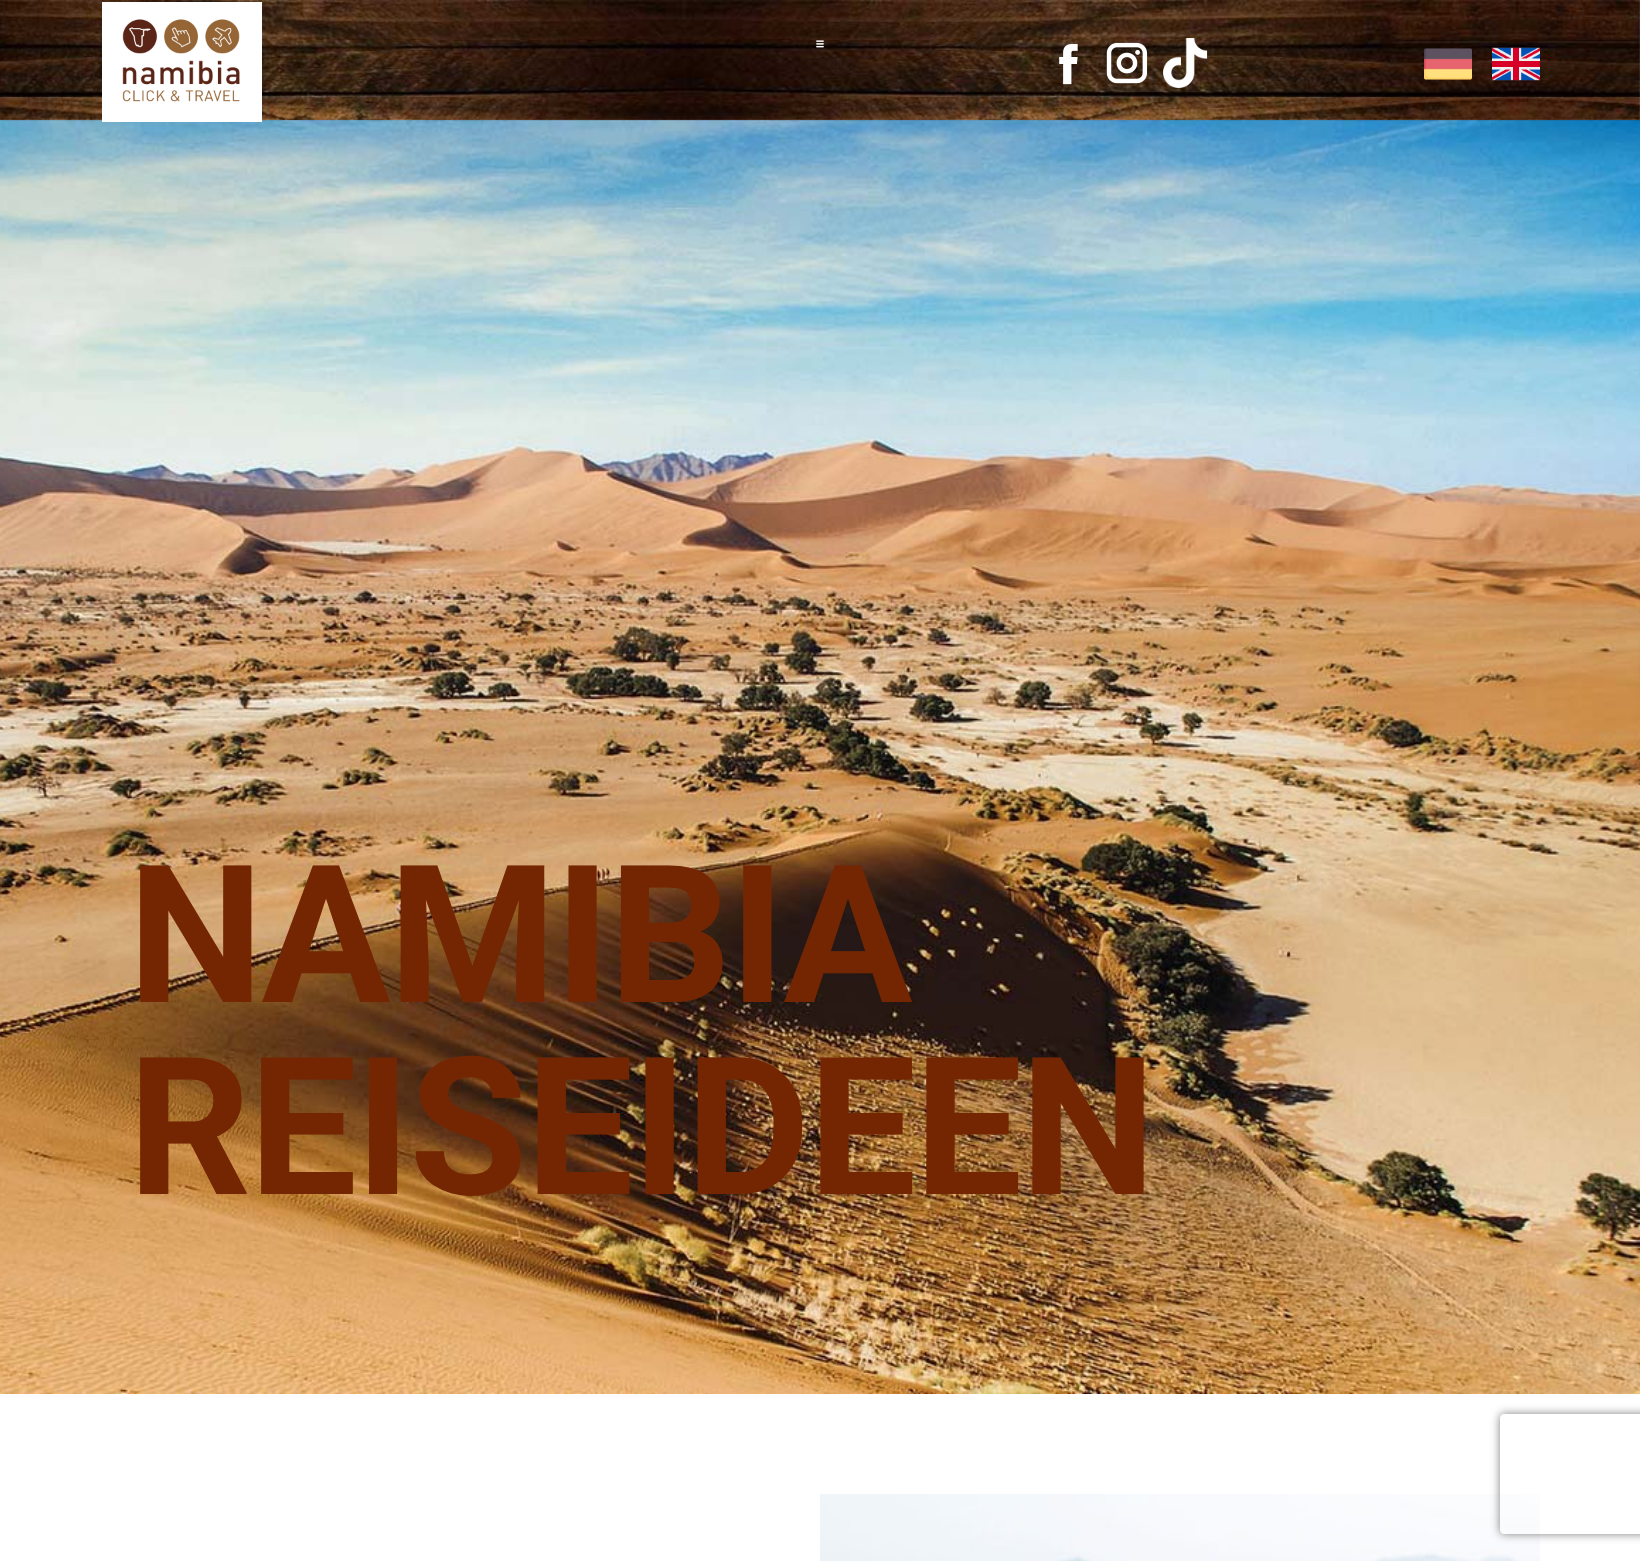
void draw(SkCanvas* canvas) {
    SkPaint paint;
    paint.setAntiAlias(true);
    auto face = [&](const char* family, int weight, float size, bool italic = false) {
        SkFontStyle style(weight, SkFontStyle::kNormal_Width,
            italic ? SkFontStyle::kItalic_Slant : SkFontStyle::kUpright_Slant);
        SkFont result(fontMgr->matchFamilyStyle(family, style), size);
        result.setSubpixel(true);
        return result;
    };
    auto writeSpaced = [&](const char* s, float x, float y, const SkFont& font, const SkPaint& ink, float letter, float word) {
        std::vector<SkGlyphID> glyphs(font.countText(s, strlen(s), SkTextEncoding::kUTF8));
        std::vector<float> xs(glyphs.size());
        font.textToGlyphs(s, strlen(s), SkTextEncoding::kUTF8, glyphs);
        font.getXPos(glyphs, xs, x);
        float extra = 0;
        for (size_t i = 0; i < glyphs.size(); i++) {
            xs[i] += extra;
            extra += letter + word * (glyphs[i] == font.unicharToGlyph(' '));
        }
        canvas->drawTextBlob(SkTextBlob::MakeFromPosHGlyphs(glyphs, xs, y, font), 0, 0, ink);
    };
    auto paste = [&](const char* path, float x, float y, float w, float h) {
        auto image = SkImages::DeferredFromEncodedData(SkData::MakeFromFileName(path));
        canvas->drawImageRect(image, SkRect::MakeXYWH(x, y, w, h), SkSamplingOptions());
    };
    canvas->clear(SK_ColorWHITE);
    paste("pic9.png", 0, 120, 1640, 1274);
    paste("pic1.png", 0, 0, 1640, 121);
    paste("pic2.png", 102, 2, 160, 120);
    paste("pic3.png", 816, 40, 8, 8);
    paste("pic4.png", 1059, 44, 19, 41);
    paste("pic5.png", 1106, 42, 42, 42);
    paste("pic6.png", 1162, 38, 46, 50);
    paste("pic7.png", 1424, 48, 48, 32);
    paste("pic8.png", 1492, 47, 48, 34);
    auto kFont1 = face("Roboto", 700, 192);
    paint.setColor(SkColorSetRGB(116, 38, 2));
    writeSpaced("NAMIBIA", 128, 1002, kFont1, paint, -2, 0);
    writeSpaced("REISEIDEEN", 128, 1194, kFont1, paint, -2, 0);
    paste("pic10.png", 820, 1494, 720, 67);
    canvas->save();
    canvas->clipPath(SkPathBuilder(SkPathFillType::kEvenOdd).moveTo(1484, 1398).lineTo(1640, 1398).lineTo(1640, 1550).lineTo(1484, 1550).close().moveTo(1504, 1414).lineTo(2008, 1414).cubicTo(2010, 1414, 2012, 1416, 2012, 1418).lineTo(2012, 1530).cubicTo(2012, 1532, 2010, 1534, 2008, 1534).lineTo(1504, 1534).cubicTo(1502, 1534, 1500, 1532, 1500, 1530).lineTo(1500, 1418).cubicTo(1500, 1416, 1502, 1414, 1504, 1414).close().detach(), true);
    paint.setColor(SkColorSetRGB(128, 128, 128));
    paint.setMaskFilter(SkMaskFilter::MakeBlur(kNormal_SkBlurStyle, 5));
    canvas->drawRoundRect(SkRect::MakeXYWH(1500, 1414, 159, 120), 4, 4, paint);
    paint.setMaskFilter(nullptr);
    canvas->restore();
}
